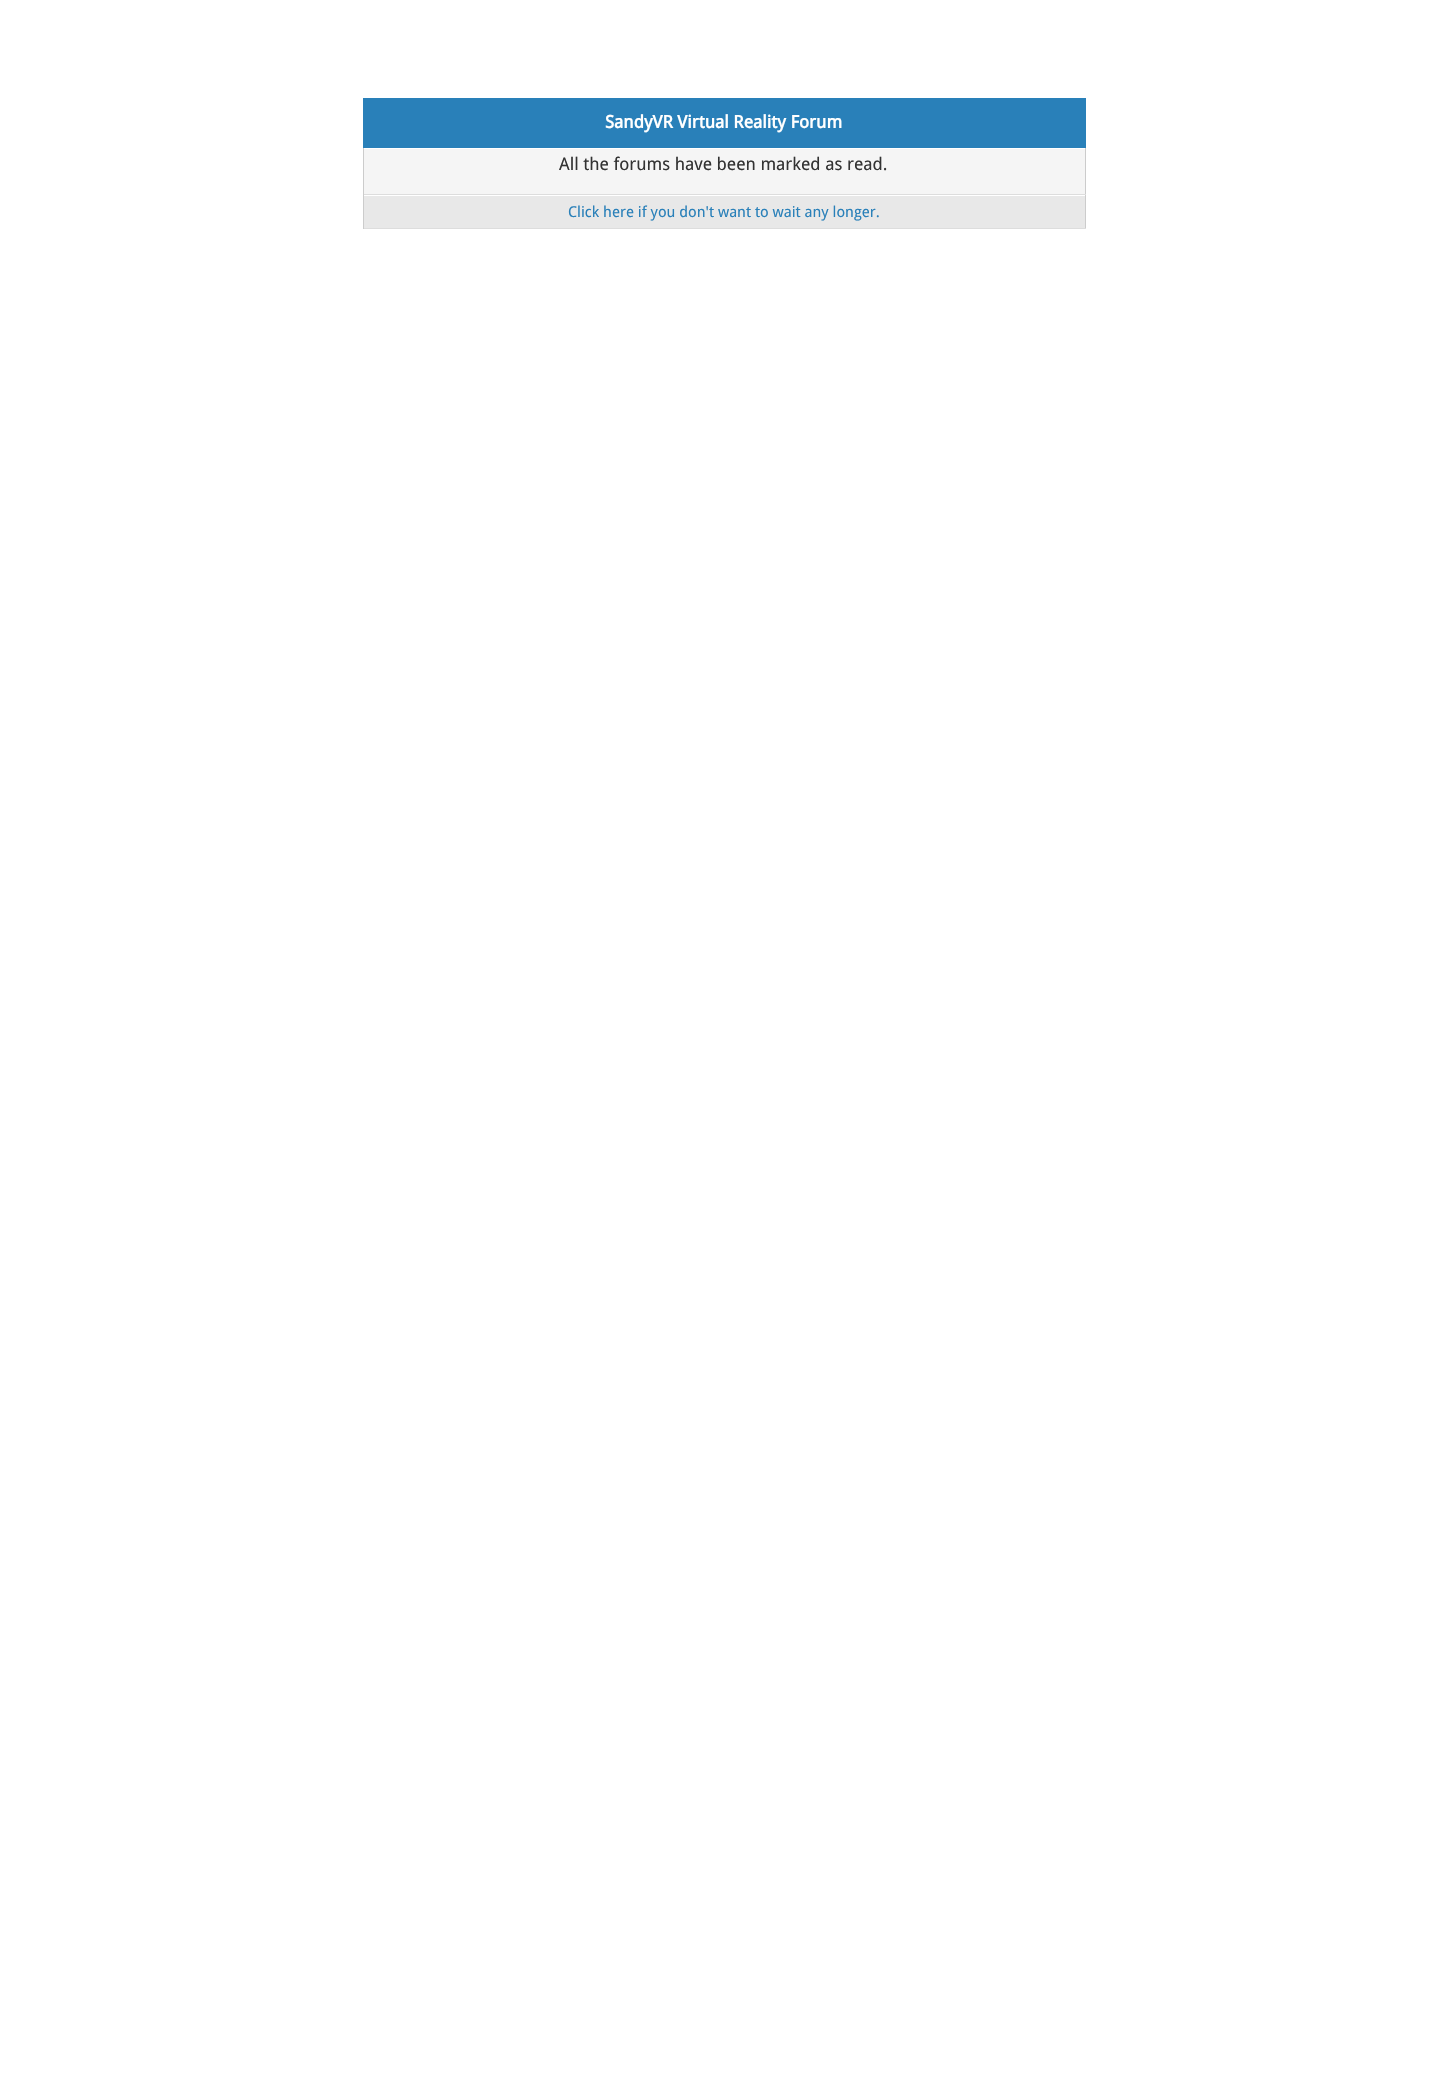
void draw(SkCanvas* canvas) {
    SkPaint paint;
    paint.setAntiAlias(true);
    auto face = [&](const char* family, int weight, float size, bool italic = false) {
        SkFontStyle style(weight, SkFontStyle::kNormal_Width,
            italic ? SkFontStyle::kItalic_Slant : SkFontStyle::kUpright_Slant);
        SkFont result(fontMgr->matchFamilyStyle(family, style), size);
        result.setSubpixel(true);
        return result;
    };
    auto write = [&](const char* s, float x, float y, const SkFont& font, SkColor color) {
        SkPaint ink(SkColor4f::FromColor(color));
        ink.setAntiAlias(true);
        canvas->drawString(s, x, y, font, ink);
    };
    auto block = [&](float x, float y, float w, float h, SkColor color) {
        SkPaint ink(SkColor4f::FromColor(color));
        ink.setAntiAlias(true);
        canvas->drawRect(SkRect::MakeXYWH(x, y, w, h), ink);
    };
    canvas->clear(SK_ColorWHITE);
    block(363, 98, 723, 50, SkColorSetRGB(41, 128, 185));
    auto kFont1 = face("Droid Sans", 700, 17.5f);
    write("SandyVR Virtual Reality Forum", 605, 128, kFont1, SK_ColorWHITE);
    block(364, 149, 721, 45, SkColorSetRGB(245, 245, 245));
    block(1085, 148, 1, 81, SkColorSetRGB(204, 204, 204));
    block(363, 194, 723, 1, SkColorSetRGB(221, 221, 221));
    block(363, 148, 1, 47, SkColorSetRGB(204, 204, 204));
    auto kFont2 = face("Droid Sans", 400, 17.5f);
    write("All the forums have been marked as read.", 559, 170, kFont2, SkColorSetRGB(51, 51, 51));
    block(364, 196, 721, 32, SkColorSetRGB(232, 232, 232));
    block(363, 228, 723, 1, SkColorSetRGB(221, 221, 221));
    block(363, 195, 1, 34, SkColorSetRGB(204, 204, 204));
    auto kFont3 = face("Droid Sans", 400, 15);
    write("Click here if you don't want to wait any longer.", 568, 217, kFont3, SkColorSetRGB(41, 128, 185));
}
